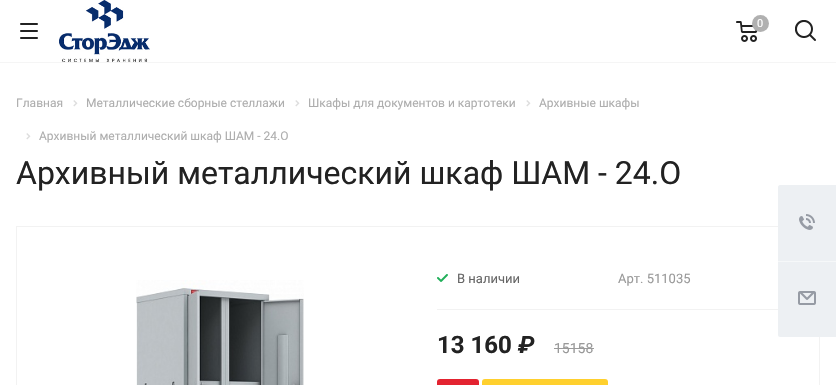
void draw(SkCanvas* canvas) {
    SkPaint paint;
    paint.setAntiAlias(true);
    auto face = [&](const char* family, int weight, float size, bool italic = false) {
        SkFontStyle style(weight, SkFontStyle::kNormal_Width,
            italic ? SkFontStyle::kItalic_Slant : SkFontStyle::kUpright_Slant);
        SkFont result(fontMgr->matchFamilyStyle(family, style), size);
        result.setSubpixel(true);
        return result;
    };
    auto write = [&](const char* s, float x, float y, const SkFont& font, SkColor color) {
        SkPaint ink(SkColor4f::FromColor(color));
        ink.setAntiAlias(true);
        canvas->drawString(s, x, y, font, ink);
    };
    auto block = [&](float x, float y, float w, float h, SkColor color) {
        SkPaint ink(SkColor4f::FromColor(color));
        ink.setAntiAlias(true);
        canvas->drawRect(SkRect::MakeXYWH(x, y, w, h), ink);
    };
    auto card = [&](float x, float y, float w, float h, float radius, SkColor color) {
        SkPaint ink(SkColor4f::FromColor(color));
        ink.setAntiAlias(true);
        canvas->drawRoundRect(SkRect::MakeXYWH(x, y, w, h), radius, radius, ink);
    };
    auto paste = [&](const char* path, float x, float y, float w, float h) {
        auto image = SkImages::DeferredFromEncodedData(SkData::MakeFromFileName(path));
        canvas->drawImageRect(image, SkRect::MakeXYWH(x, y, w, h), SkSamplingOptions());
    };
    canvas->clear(SK_ColorWHITE);
    block(0, 62, 836, 1, SkColorSetRGB(245, 245, 245));
    paste("pic1.png", 20, 23, 18, 16);
    paste("pic2.png", 59, 0, 91, 62);
    paste("pic3.png", 736, 21, 22, 21);
    paint.setColor(SkColorSetRGB(176, 176, 176));
    canvas->drawCircle(760.5f, 23.5f, 8.5f, paint);
    auto kFont1 = face("Roboto", 400, 11);
    write("0", 757, 27, kFont1, SK_ColorWHITE);
    paste("pic4.png", 795, 20, 21, 21);
    auto kFont2 = face("Roboto", 400, 12);
    write("Главная", 16, 107, kFont2, SkColorSetRGB(174, 174, 174));
    paste("pic5.png", 73, 100, 5, 7);
    write("Металлические сборные стеллажи", 86, 107, kFont2, SkColorSetRGB(174, 174, 174));
    paste("pic5.png", 295, 100, 5, 7);
    write("Шкафы для документов и картотеки", 308, 107, kFont2, SkColorSetRGB(174, 174, 174));
    paste("pic5.png", 526, 100, 5, 7);
    write("Архивные шкафы", 539, 107, kFont2, SkColorSetRGB(174, 174, 174));
    paste("pic5.png", 26, 133, 5, 7);
    write("Архивный металлический шкаф ШАМ - 24.О", 39, 140, kFont2, SkColorSetRGB(174, 174, 174));
    auto kFont3 = face("Roboto", 400, 32);
    write("Архивный металлический шкаф ШАМ - 24.О", 16, 184, kFont3, SkColorSetRGB(34, 34, 34));
    paint.setStyle(SkPaint::kStroke_Style);
    paint.setStrokeWidth(1);
    paint.setColor(SkColorSetRGB(242, 242, 242));
    canvas->drawRect(SkRect::MakeXYWH(16.5f, 226.5f, 803, 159), paint);
    paste("pic6.png", 136, 280, 168, 105);
    paste("pic7.png", 437, 274, 11, 8);
    auto kFont4 = face("Roboto", 400, 13);
    write("В наличии", 457, 283, kFont4, SkColorSetRGB(102, 102, 102));
    write("Арт. 511035", 618, 283, kFont4, SkColorSetRGB(153, 153, 153));
    block(437, 309, 344, 1, SkColorSetRGB(242, 242, 242));
    auto kFont5 = face("Roboto", 700, 24);
    write("13 160", 437, 353, kFont5, SkColorSetRGB(34, 34, 34));
    auto kFont6 = face("Roboto", 700, 24, true);
    write("₽", 518, 353, kFont6, SkColorSetRGB(34, 34, 34));
    auto kFont7 = face("Roboto", 400, 14);
    write("15158", 554, 353, kFont7, SkColorSetRGB(153, 153, 153));
    block(554, 348, 40, 1, SkColorSetRGB(154, 154, 154));
    card(437, 379, 42, 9, 3, SkColorSetRGB(227, 35, 48));
    card(482, 379, 126, 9, 3, SkColorSetRGB(255, 208, 46));
    paint.setStyle(SkPaint::kFill_Style);
    paint.setColor(SkColorSetRGB(237, 240, 243));
    canvas->drawPath(SkPathBuilder().moveTo(780, 185).lineTo(836, 185).lineTo(836, 261).lineTo(778, 261).lineTo(778, 187).cubicTo(778, 186, 779, 185, 780, 185).close().detach(), paint);
    paste("pic8.png", 799, 214, 16, 16);
    canvas->drawPath(SkPathBuilder().moveTo(778, 261).lineTo(836, 261).lineTo(836, 337).lineTo(780, 337).cubicTo(779, 337, 778, 336, 778, 335).close().detach(), paint);
    block(778, 261, 58, 1, SkColorSetRGB(246, 248, 249));
    paste("pic9.png", 798, 291, 18, 14);
}
